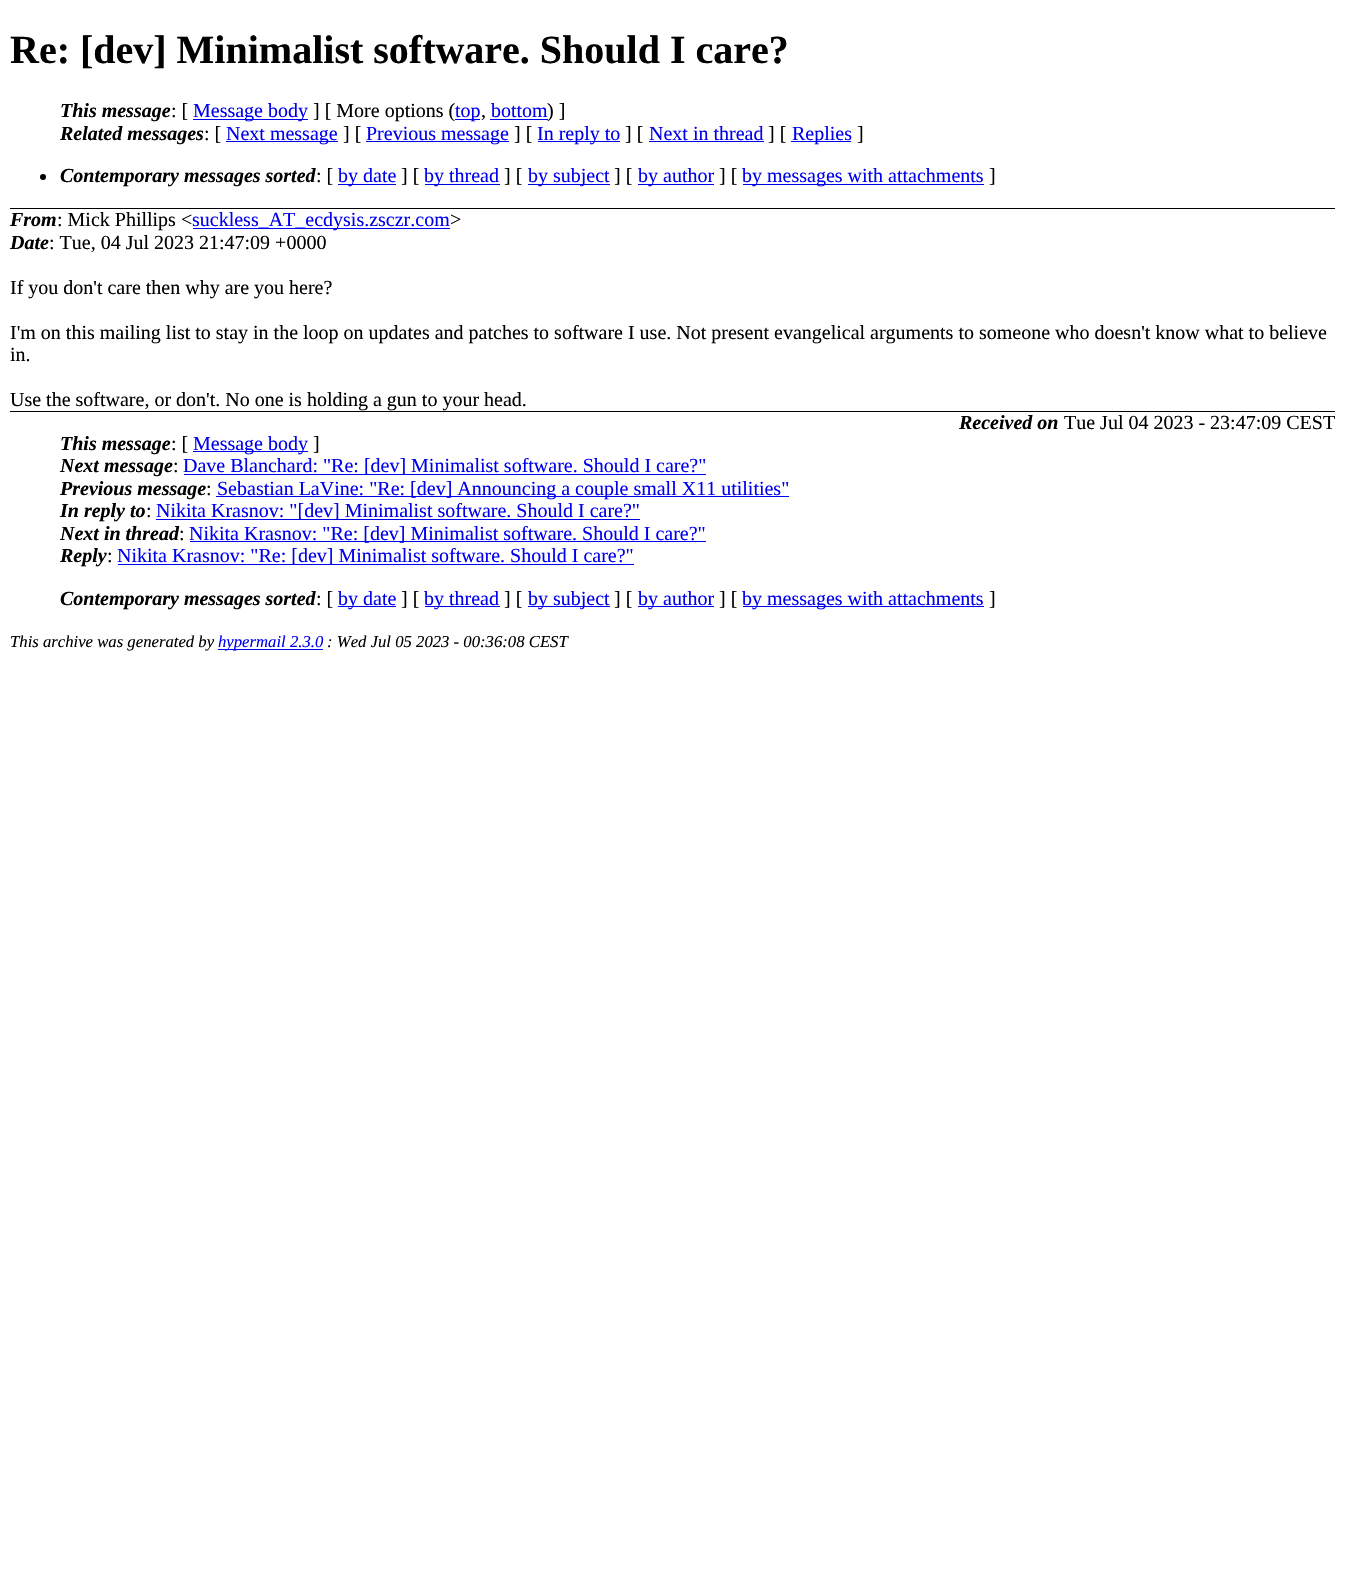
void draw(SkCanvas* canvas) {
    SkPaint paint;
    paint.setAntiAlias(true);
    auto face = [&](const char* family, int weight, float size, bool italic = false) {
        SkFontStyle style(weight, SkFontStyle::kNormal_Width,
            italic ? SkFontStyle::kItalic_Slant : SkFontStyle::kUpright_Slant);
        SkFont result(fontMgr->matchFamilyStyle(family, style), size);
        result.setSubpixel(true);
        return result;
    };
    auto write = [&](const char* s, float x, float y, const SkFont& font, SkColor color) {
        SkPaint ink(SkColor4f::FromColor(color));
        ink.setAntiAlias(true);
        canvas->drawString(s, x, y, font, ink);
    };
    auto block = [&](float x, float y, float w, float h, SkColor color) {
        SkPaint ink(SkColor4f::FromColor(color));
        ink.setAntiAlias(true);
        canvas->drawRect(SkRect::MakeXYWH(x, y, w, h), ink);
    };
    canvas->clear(SK_ColorWHITE);
    block(10, 208, 1325, 1, SK_ColorBLACK);
    auto kFont1 = face("Liberation Serif", 700, 40);
    write("Re: [dev] Minimalist software. Should I care?", 10, 63, kFont1, SK_ColorBLACK);
    auto kFont2 = face("Liberation Serif", 700, 20, true);
    write("This message", 60, 117, kFont2, SK_ColorBLACK);
    auto kFont3 = face("Liberation Serif", 400, 20);
    write(": [", 171, 117, kFont3, SK_ColorBLACK);
    block(193, 119, 115, 1, SkColorSetRGB(0, 0, 238));
    write("Message body", 193, 117, kFont3, SkColorSetRGB(0, 0, 238));
    write("] [ More options (", 313, 117, kFont3, SK_ColorBLACK);
    block(455, 119, 25, 1, SkColorSetRGB(0, 0, 238));
    write("top", 455, 117, kFont3, SkColorSetRGB(0, 0, 238));
    write(",", 481, 117, kFont3, SK_ColorBLACK);
    write("bottom", 491, 117, kFont3, SkColorSetRGB(0, 0, 238));
    block(490, 119, 58, 1, SkColorSetRGB(0, 0, 238));
    write(") ]", 547, 117, kFont3, SK_ColorBLACK);
    write("Related messages", 60, 140, kFont2, SK_ColorBLACK);
    write(": [", 204, 140, kFont3, SK_ColorBLACK);
    block(226, 141, 112, 1, SkColorSetRGB(0, 0, 238));
    write("Next message", 226, 140, kFont3, SkColorSetRGB(0, 0, 238));
    write("] [", 343, 140, kFont3, SK_ColorBLACK);
    block(366, 141, 143, 1, SkColorSetRGB(0, 0, 238));
    write("Previous message", 366, 140, kFont3, SkColorSetRGB(0, 0, 238));
    write("] [", 514, 140, kFont3, SK_ColorBLACK);
    block(538, 141, 82, 1, SkColorSetRGB(0, 0, 238));
    write("In reply to", 537, 140, kFont3, SkColorSetRGB(0, 0, 238));
    write("] [", 625, 140, kFont3, SK_ColorBLACK);
    write("Next in thread", 649, 140, kFont3, SkColorSetRGB(0, 0, 238));
    block(649, 141, 115, 1, SkColorSetRGB(0, 0, 238));
    write("] [", 768, 140, kFont3, SK_ColorBLACK);
    block(791, 141, 60, 1, SkColorSetRGB(0, 0, 238));
    write("Replies", 792, 140, kFont3, SkColorSetRGB(0, 0, 238));
    write("]", 857, 140, kFont3, SK_ColorBLACK);
    paint.setColor(SK_ColorBLACK);
    canvas->drawCircle(43, 177, 3, paint);
    write("Contemporary messages sorted", 60, 182, kFont2, SK_ColorBLACK);
    write(": [", 316, 182, kFont3, SK_ColorBLACK);
    block(338, 184, 58, 1, SkColorSetRGB(0, 0, 238));
    write("by date", 338, 182, kFont3, SkColorSetRGB(0, 0, 238));
    write("] [", 401, 182, kFont3, SK_ColorBLACK);
    block(425, 184, 75, 1, SkColorSetRGB(0, 0, 238));
    write("by thread", 424, 182, kFont3, SkColorSetRGB(0, 0, 238));
    write("] [", 504, 182, kFont3, SK_ColorBLACK);
    block(528, 184, 82, 1, SkColorSetRGB(0, 0, 238));
    write("by subject", 528, 182, kFont3, SkColorSetRGB(0, 0, 238));
    write("] [", 614, 182, kFont3, SK_ColorBLACK);
    block(638, 184, 76, 1, SkColorSetRGB(0, 0, 238));
    write("by author", 638, 182, kFont3, SkColorSetRGB(0, 0, 238));
    write("] [", 719, 182, kFont3, SK_ColorBLACK);
    block(743, 184, 241, 1, SkColorSetRGB(0, 0, 238));
    write("by messages with attachments", 742, 182, kFont3, SkColorSetRGB(0, 0, 238));
    write("]", 989, 182, kFont3, SK_ColorBLACK);
    write("From", 10, 226, kFont2, SK_ColorBLACK);
    write(": Mick Phillips <", 57, 226, kFont3, SK_ColorBLACK);
    block(193, 228, 257, 1, SkColorSetRGB(0, 0, 238));
    write("suckless_AT_ecdysis.zsczr.com", 192, 226, kFont3, SkColorSetRGB(0, 0, 238));
    write(">", 450, 226, kFont3, SK_ColorBLACK);
    write("Date", 10, 249, kFont2, SK_ColorBLACK);
    write(": Tue, 04 Jul 2023 21:47:09 +0000", 49, 249, kFont3, SK_ColorBLACK);
    write("If you don't care then why are you here?", 10, 294, kFont3, SK_ColorBLACK);
    write("I'm on this mailing list to stay in the loop on updates and patches to software I use. Not present evangelical arguments to someone who doesn't know what to believe", 10, 339, kFont3, SK_ColorBLACK);
    write("in.", 10, 361, kFont3, SK_ColorBLACK);
    write("Use the software, or don't. No one is holding a gun to your head.", 10, 406, kFont3, SK_ColorBLACK);
    write("Received on", 959, 429, kFont2, SK_ColorBLACK);
    write("Tue Jul 04 2023 - 23:47:09 CEST", 1064, 429, kFont3, SK_ColorBLACK);
    block(10, 411, 1325, 1, SK_ColorBLACK);
    write("This message", 60, 450, kFont2, SK_ColorBLACK);
    write(": [", 171, 450, kFont3, SK_ColorBLACK);
    block(193, 451, 115, 1, SkColorSetRGB(0, 0, 238));
    write("Message body", 193, 450, kFont3, SkColorSetRGB(0, 0, 238));
    write("]", 313, 450, kFont3, SK_ColorBLACK);
    write("Next message", 60, 472, kFont2, SK_ColorBLACK);
    write(":", 173, 472, kFont3, SK_ColorBLACK);
    block(184, 474, 522, 1, SkColorSetRGB(0, 0, 238));
    write("Dave Blanchard: \"Re: [dev] Minimalist software. Should I care?\"", 183, 472, kFont3, SkColorSetRGB(0, 0, 238));
    write("Previous message", 60, 495, kFont2, SK_ColorBLACK);
    write(":", 206, 495, kFont3, SK_ColorBLACK);
    block(216, 496, 573, 1, SkColorSetRGB(0, 0, 238));
    write("Sebastian LaVine: \"Re: [dev] Announcing a couple small X11 utilities\"", 217, 495, kFont3, SkColorSetRGB(0, 0, 238));
    write("In reply to", 60, 517, kFont2, SK_ColorBLACK);
    write(":", 146, 517, kFont3, SK_ColorBLACK);
    block(156, 519, 484, 1, SkColorSetRGB(0, 0, 238));
    write("Nikita Krasnov: \"[dev] Minimalist software. Should I care?\"", 156, 517, kFont3, SkColorSetRGB(0, 0, 238));
    write("Next in thread", 60, 540, kFont2, SK_ColorBLACK);
    write(":", 179, 540, kFont3, SK_ColorBLACK);
    block(190, 541, 516, 1, SkColorSetRGB(0, 0, 238));
    write("Nikita Krasnov: \"Re: [dev] Minimalist software. Should I care?\"", 189, 540, kFont3, SkColorSetRGB(0, 0, 238));
    write("Reply", 60, 562, kFont2, SK_ColorBLACK);
    write(":", 107, 562, kFont3, SK_ColorBLACK);
    block(118, 564, 516, 1, SkColorSetRGB(0, 0, 238));
    write("Nikita Krasnov: \"Re: [dev] Minimalist software. Should I care?\"", 117, 562, kFont3, SkColorSetRGB(0, 0, 238));
    write("Contemporary messages sorted", 60, 605, kFont2, SK_ColorBLACK);
    write(": [", 316, 605, kFont3, SK_ColorBLACK);
    block(338, 606, 58, 1, SkColorSetRGB(0, 0, 238));
    write("by date", 338, 605, kFont3, SkColorSetRGB(0, 0, 238));
    write("] [", 401, 605, kFont3, SK_ColorBLACK);
    block(425, 606, 75, 1, SkColorSetRGB(0, 0, 238));
    write("by thread", 424, 605, kFont3, SkColorSetRGB(0, 0, 238));
    write("] [", 504, 605, kFont3, SK_ColorBLACK);
    block(528, 606, 82, 1, SkColorSetRGB(0, 0, 238));
    write("by subject", 528, 605, kFont3, SkColorSetRGB(0, 0, 238));
    write("] [", 614, 605, kFont3, SK_ColorBLACK);
    block(638, 606, 76, 1, SkColorSetRGB(0, 0, 238));
    write("by author", 638, 605, kFont3, SkColorSetRGB(0, 0, 238));
    write("] [", 719, 605, kFont3, SK_ColorBLACK);
    block(743, 606, 241, 1, SkColorSetRGB(0, 0, 238));
    write("by messages with attachments", 742, 605, kFont3, SkColorSetRGB(0, 0, 238));
    write("]", 989, 605, kFont3, SK_ColorBLACK);
    auto kFont4 = face("Liberation Serif", 400, 16.7f, true);
    write("This archive was generated by", 10, 647, kFont4, SK_ColorBLACK);
    block(218, 649, 105, 1, SkColorSetRGB(0, 0, 238));
    write("hypermail 2.3.0", 218, 647, kFont4, SkColorSetRGB(0, 0, 238));
    write(": Wed Jul 05 2023 - 00:36:08 CEST", 327, 647, kFont4, SK_ColorBLACK);
}
